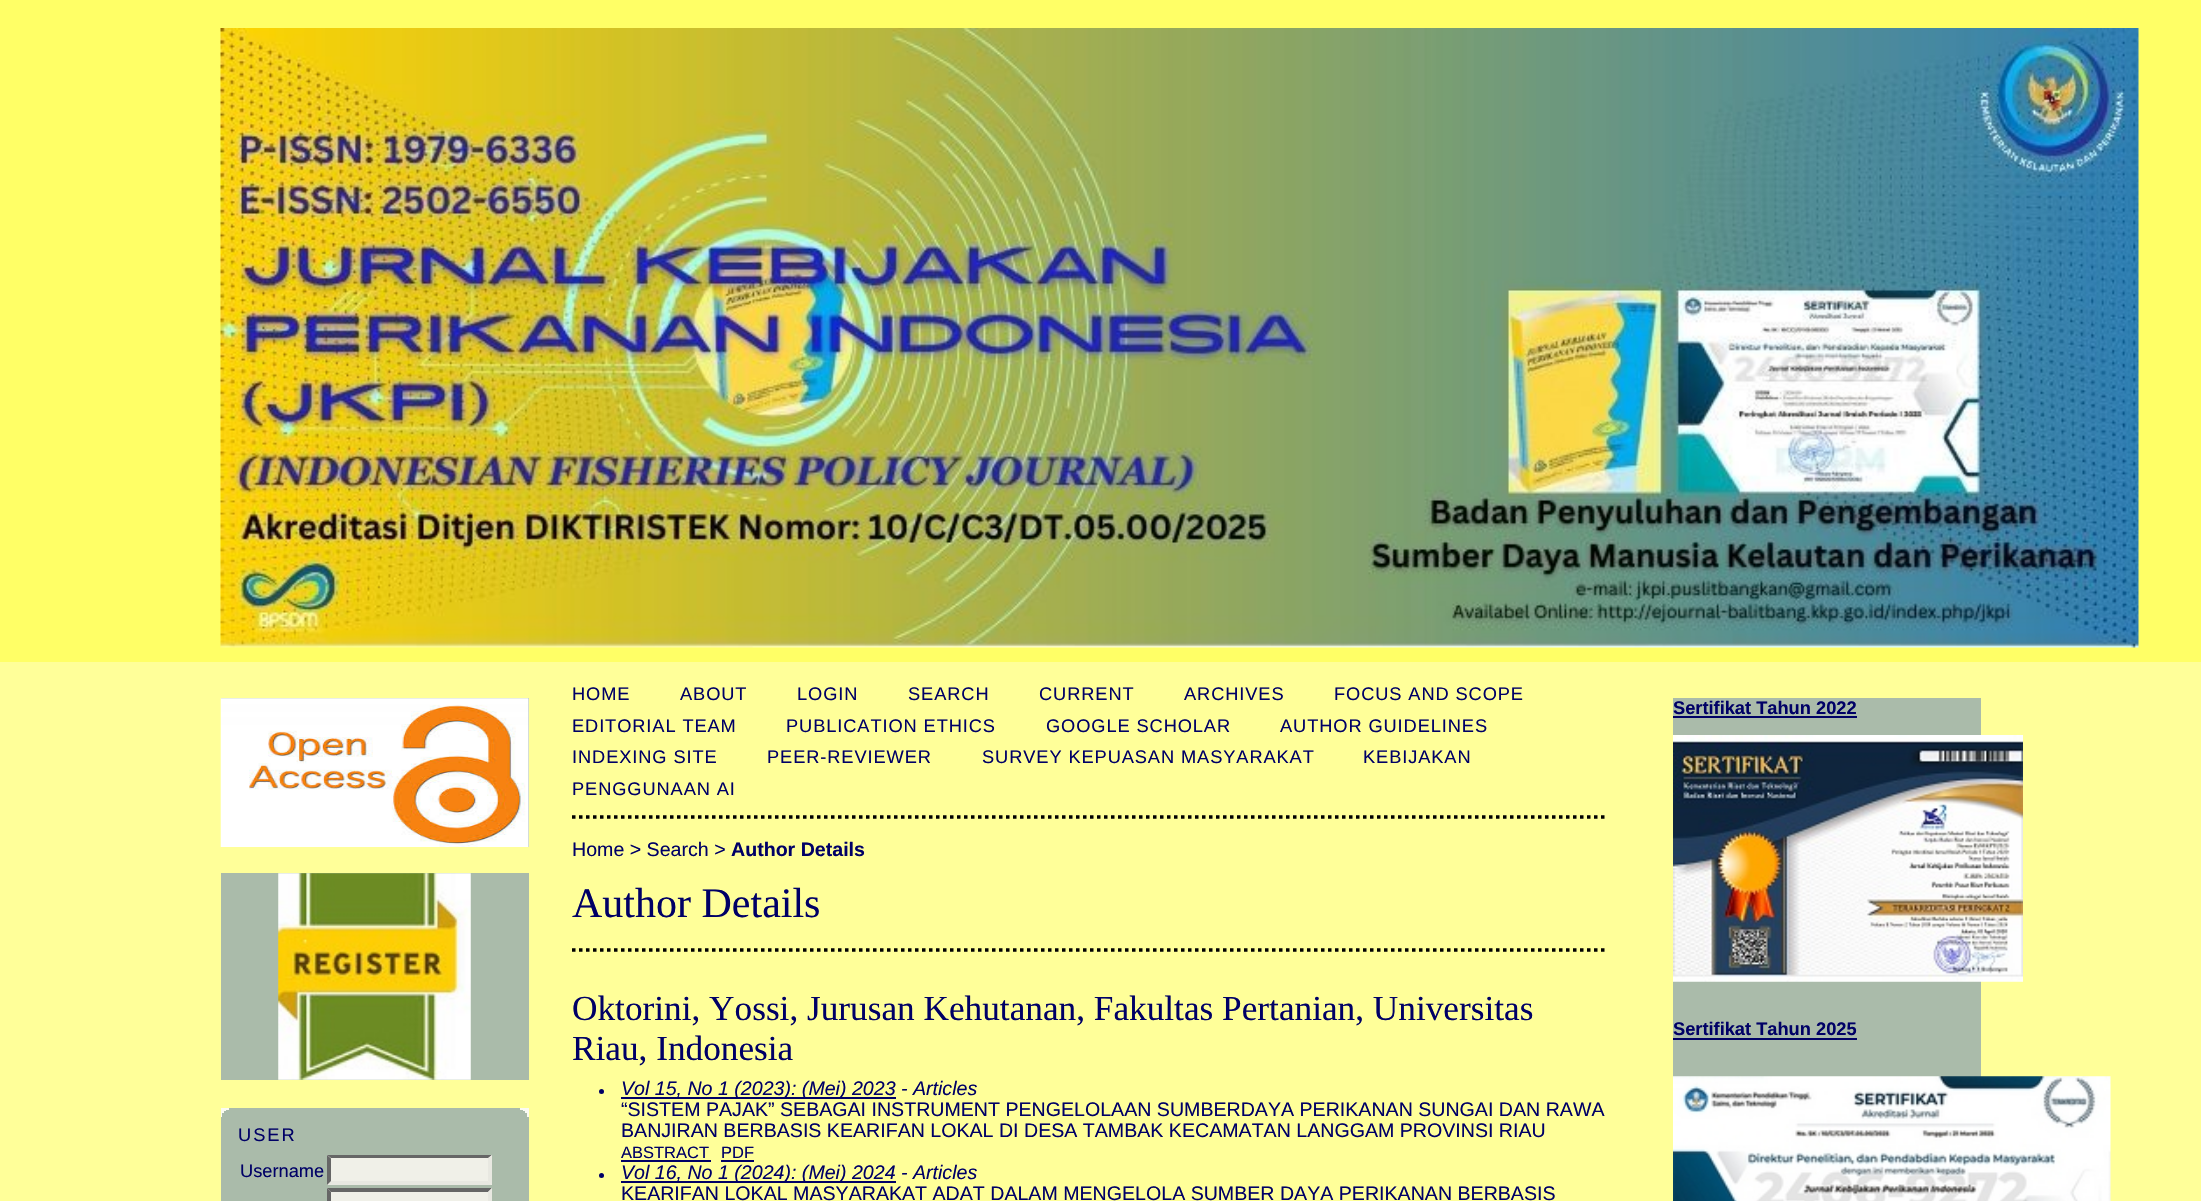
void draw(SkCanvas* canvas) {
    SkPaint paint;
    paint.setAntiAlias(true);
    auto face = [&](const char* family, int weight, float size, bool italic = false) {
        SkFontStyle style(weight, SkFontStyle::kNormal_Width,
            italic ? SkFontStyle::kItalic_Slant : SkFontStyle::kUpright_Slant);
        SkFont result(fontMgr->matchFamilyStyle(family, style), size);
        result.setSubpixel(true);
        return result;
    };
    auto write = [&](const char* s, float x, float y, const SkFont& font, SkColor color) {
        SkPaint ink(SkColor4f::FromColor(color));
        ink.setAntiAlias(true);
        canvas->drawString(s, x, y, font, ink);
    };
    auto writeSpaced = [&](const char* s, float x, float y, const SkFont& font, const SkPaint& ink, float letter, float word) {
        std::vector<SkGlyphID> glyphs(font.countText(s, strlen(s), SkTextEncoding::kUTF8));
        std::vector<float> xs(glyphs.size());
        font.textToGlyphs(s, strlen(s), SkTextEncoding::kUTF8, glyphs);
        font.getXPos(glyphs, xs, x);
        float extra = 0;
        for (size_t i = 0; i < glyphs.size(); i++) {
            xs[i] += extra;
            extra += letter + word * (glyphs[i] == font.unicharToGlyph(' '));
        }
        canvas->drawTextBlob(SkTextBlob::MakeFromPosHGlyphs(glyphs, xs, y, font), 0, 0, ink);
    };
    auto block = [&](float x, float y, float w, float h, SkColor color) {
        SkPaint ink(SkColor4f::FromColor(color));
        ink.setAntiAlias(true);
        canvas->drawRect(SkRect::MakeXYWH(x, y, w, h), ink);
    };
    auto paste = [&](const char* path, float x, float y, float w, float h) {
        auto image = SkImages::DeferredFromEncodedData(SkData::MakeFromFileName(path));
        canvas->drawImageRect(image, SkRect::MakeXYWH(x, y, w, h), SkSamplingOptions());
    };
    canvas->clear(SkColorSetRGB(255, 255, 153));
    block(0, 0, 2201, 662, SkColorSetRGB(255, 255, 102));
    paste("pic1.png", 220, 28, 1919, 620);
    paint.setStyle(SkPaint::kStroke_Style);
    paint.setStrokeWidth(3.5f);
    paint.setColor(SK_ColorBLACK);
    paint.setPathEffect(SkDashPathEffect::Make({{3.5f, 3.5f}}, 0));
    canvas->drawPath(SkPathBuilder().moveTo(572, 817).lineTo(1606.5f, 817).detach(), paint);
    paint.setPathEffect(nullptr);
    auto kFont1 = face("Liberation Sans", 400, 18.25f);
    paint.setStyle(SkPaint::kFill_Style);
    paint.setColor(SkColorSetRGB(0, 0, 102));
    writeSpaced("HOME", 572, 700, kFont1, paint, 0.9f, 0);
    writeSpaced("ABOUT", 680, 700, kFont1, paint, 0.9f, 0);
    writeSpaced("LOGIN", 797, 700, kFont1, paint, 0.9f, 0);
    writeSpaced("SEARCH", 908, 700, kFont1, paint, 0.9f, 0);
    writeSpaced("CURRENT", 1039, 700, kFont1, paint, 0.9f, 0);
    writeSpaced("ARCHIVES", 1184, 700, kFont1, paint, 0.9f, 0);
    writeSpaced("FOCUS AND SCOPE", 1334, 700, kFont1, paint, 0.9f, 0);
    writeSpaced("EDITORIAL TEAM", 572, 732, kFont1, paint, 0.9f, 0);
    writeSpaced("PUBLICATION ETHICS", 786, 732, kFont1, paint, 0.9f, 0);
    writeSpaced("GOOGLE SCHOLAR", 1046, 732, kFont1, paint, 0.9f, 0);
    writeSpaced("AUTHOR GUIDELINES", 1280, 732, kFont1, paint, 0.9f, 0);
    writeSpaced("INDEXING SITE", 572, 763, kFont1, paint, 0.9f, 0);
    writeSpaced("PEER-REVIEWER", 767, 763, kFont1, paint, 0.9f, 0);
    writeSpaced("SURVEY KEPUASAN MASYARAKAT", 982, 763, kFont1, paint, 0.9f, 0);
    writeSpaced("KEBIJAKAN", 1363, 763, kFont1, paint, 0.9f, 0);
    writeSpaced("PENGGUNAAN AI", 572, 795, kFont1, paint, 0.9f, 0);
    auto kFont2 = face("Liberation Sans", 400, 19.6f);
    write("Home > Search >", 572, 856, kFont2, SkColorSetRGB(0, 0, 102));
    auto kFont3 = face("Liberation Sans", 700, 19.6f);
    write("Author Details", 731, 856, kFont3, SkColorSetRGB(0, 0, 102));
    auto kFont4 = face("Liberation Serif", 400, 42);
    write("Author Details", 572, 917, kFont4, SkColorSetRGB(0, 0, 102));
    paint.setStyle(SkPaint::kStroke_Style);
    paint.setColor(SK_ColorBLACK);
    paint.setPathEffect(SkDashPathEffect::Make({{3.5f, 3.5f}}, 0));
    canvas->drawPath(SkPathBuilder().moveTo(572, 950).lineTo(1606.5f, 950).detach(), paint);
    paint.setPathEffect(nullptr);
    auto kFont5 = face("Liberation Serif", 400, 35.25f);
    write("Oktorini, Yossi, Jurusan Kehutanan, Fakultas Pertanian, Universitas", 572, 1020, kFont5, SkColorSetRGB(0, 0, 102));
    write("Riau, Indonesia", 572, 1060, kFont5, SkColorSetRGB(0, 0, 102));
    paint.setStyle(SkPaint::kFill_Style);
    paint.setColor(SkColorSetRGB(0, 0, 102));
    canvas->drawCircle(601.5f, 1091.5f, 2.5f, paint);
    block(621, 1097, 275, 2, SkColorSetRGB(0, 0, 102));
    auto kFont6 = face("Liberation Sans", 400, 19.6f, true);
    write("Vol 15, No 1 (2023): (Mei) 2023 - Articles", 621, 1095, kFont6, SkColorSetRGB(0, 0, 102));
    write("“SISTEM PAJAK” SEBAGAI INSTRUMENT PENGELOLAAN SUMBERDAYA PERIKANAN SUNGAI DAN RAWA", 621, 1116, kFont2, SkColorSetRGB(0, 0, 102));
    write("BANJIRAN BERBASIS KEARIFAN LOKAL DI DESA TAMBAK KECAMATAN LANGGAM PROVINSI RIAU", 621, 1137, kFont2, SkColorSetRGB(0, 0, 102));
    auto kFont7 = face("Liberation Sans", 400, 16.5f);
    write("ABSTRACT", 621, 1158, kFont7, SkColorSetRGB(0, 0, 102));
    block(621, 1160, 90, 2, SkColorSetRGB(0, 0, 102));
    write("PDF", 721, 1158, kFont7, SkColorSetRGB(0, 0, 102));
    block(721, 1160, 33, 2, SkColorSetRGB(0, 0, 102));
    canvas->drawCircle(601.5f, 1175.5f, 2.5f, paint);
    block(621, 1181, 275, 2, SkColorSetRGB(0, 0, 102));
    write("Vol 16, No 1 (2024): (Mei) 2024 - Articles", 621, 1179, kFont6, SkColorSetRGB(0, 0, 102));
    write("KEARIFAN LOKAL MASYARAKAT ADAT DALAM MENGELOLA SUMBER DAYA PERIKANAN BERBASIS", 621, 1200, kFont2, SkColorSetRGB(0, 0, 102));
    block(1673, 698, 308, 379, SkColorSetRGB(170, 187, 170));
    auto kFont8 = face("Liberation Sans", 700, 18.25f);
    write("Sertifikat Tahun 2022", 1673, 714, kFont8, SkColorSetRGB(0, 0, 102));
    block(1673, 716, 184, 2, SkColorSetRGB(0, 0, 102));
    paste("pic2.png", 1673, 735, 350, 247);
    write("Sertifikat Tahun 2025", 1673, 1035, kFont8, SkColorSetRGB(0, 0, 102));
    block(1673, 1038, 184, 2, SkColorSetRGB(0, 0, 102));
    paste("pic3.png", 1673, 1076, 438, 125);
    block(221, 698, 308, 149, SkColorSetRGB(170, 187, 170));
    paste("pic4.png", 220, 698, 309, 149);
    block(221, 873, 308, 207, SkColorSetRGB(170, 187, 170));
    paste("pic5.png", 278, 873, 193, 207);
    block(221, 1117, 308, 84, SkColorSetRGB(170, 187, 170));
    block(221, 1108, 308, 9, SkColorSetRGB(251, 251, 243));
    block(229, 1108, 291, 2, SkColorSetRGB(170, 187, 170));
    block(226, 1110, 297, 1, SkColorSetRGB(170, 187, 170));
    block(224, 1111, 301, 2, SkColorSetRGB(170, 187, 170));
    block(222, 1113, 305, 4, SkColorSetRGB(170, 187, 170));
    writeSpaced("USER", 238, 1141, kFont1, paint, 2, 0);
    write("Username", 240, 1177, kFont1, SkColorSetRGB(0, 0, 102));
    block(327, 1155, 165, 30, SkColorSetRGB(240, 240, 232));
    paint.setColor(SkColorSetRGB(102, 102, 102));
    canvas->drawPath(SkPathBuilder().moveTo(327, 1155).lineTo(492, 1155).lineTo(488, 1158).lineTo(331, 1158).close().detach(), paint);
    paint.setColor(SkColorSetRGB(232, 232, 225));
    canvas->drawPath(SkPathBuilder().moveTo(492, 1155).lineTo(492, 1185).lineTo(488, 1181).lineTo(488, 1158.5f).close().detach(), paint);
    canvas->drawPath(SkPathBuilder().moveTo(492, 1185).lineTo(327, 1185).lineTo(331, 1181).lineTo(488, 1181).close().detach(), paint);
    paint.setColor(SkColorSetRGB(102, 102, 102));
    canvas->drawPath(SkPathBuilder().moveTo(327, 1185).lineTo(327, 1155).lineTo(331, 1158.5f).lineTo(331, 1181).close().detach(), paint);
    block(327, 1188, 165, 13, SkColorSetRGB(240, 240, 232));
    canvas->drawPath(SkPathBuilder().moveTo(327, 1188).lineTo(492, 1188).lineTo(488, 1192).lineTo(331, 1192).close().detach(), paint);
    paint.setColor(SkColorSetRGB(232, 232, 225));
    canvas->drawPath(SkPathBuilder().moveTo(492, 1188).lineTo(492, 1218).lineTo(488, 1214.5f).lineTo(488, 1192).close().detach(), paint);
    paint.setColor(SkColorSetRGB(102, 102, 102));
    canvas->drawPath(SkPathBuilder().moveTo(327, 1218).lineTo(327, 1188).lineTo(331, 1192).lineTo(331, 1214.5f).close().detach(), paint);
}
